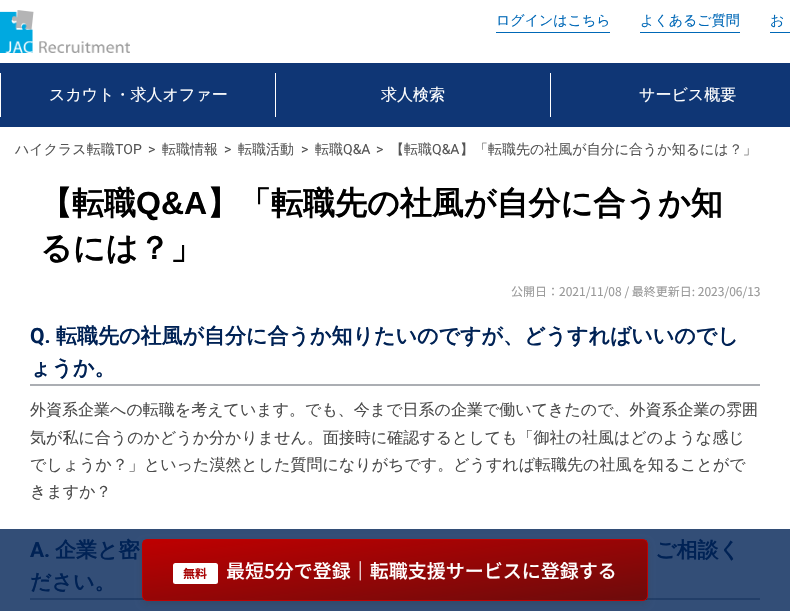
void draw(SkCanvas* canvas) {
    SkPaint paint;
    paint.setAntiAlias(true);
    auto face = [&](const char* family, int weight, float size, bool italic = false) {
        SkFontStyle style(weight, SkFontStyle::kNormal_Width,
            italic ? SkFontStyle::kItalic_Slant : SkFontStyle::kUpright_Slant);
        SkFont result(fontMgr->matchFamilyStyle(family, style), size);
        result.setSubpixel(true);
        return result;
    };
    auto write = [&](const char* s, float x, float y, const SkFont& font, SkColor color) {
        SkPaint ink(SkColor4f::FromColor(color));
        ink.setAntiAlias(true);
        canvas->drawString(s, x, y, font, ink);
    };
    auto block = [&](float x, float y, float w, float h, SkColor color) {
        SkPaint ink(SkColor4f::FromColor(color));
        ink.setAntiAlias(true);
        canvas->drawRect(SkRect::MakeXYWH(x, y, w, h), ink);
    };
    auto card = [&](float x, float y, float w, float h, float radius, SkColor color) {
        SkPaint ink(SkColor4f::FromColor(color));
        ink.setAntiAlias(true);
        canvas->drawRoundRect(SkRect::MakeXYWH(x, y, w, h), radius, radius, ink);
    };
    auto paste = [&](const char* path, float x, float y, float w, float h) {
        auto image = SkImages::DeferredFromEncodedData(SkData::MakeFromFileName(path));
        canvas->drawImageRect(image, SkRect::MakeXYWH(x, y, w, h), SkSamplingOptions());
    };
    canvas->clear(SK_ColorWHITE);
    block(0, 529, 790, 82, SkColorSetRGB(51, 78, 119));
    paste("pic1.png", 0, 10, 130, 43);
    auto kFont1 = face("WenQuanYi Zen Hei", 500, 14);
    write("ログインはこちら", 496, 25, kFont1, SkColorSetRGB(0, 104, 183));
    block(496, 32, 114, 1, SkColorSetRGB(0, 104, 183));
    write("よくあるご質問", 640, 25, kFont1, SkColorSetRGB(0, 104, 183));
    block(640, 32, 100, 1, SkColorSetRGB(0, 104, 183));
    write("お", 770, 25, kFont1, SkColorSetRGB(0, 104, 183));
    block(770, 32, 20, 1, SkColorSetRGB(0, 104, 183));
    block(0, 63, 790, 64, SkColorSetRGB(15, 54, 117));
    block(0, 73, 1, 44, SK_ColorWHITE);
    auto kFont2 = face("WenQuanYi Zen Hei", 500, 16);
    write("スカウト・求人オファー", 49, 100, kFont2, SK_ColorWHITE);
    block(275, 73, 1, 44, SK_ColorWHITE);
    write("求人検索", 381, 100, kFont2, SK_ColorWHITE);
    block(550, 73, 1, 44, SK_ColorWHITE);
    write("サービス概要", 639, 100, kFont2, SK_ColorWHITE);
    write("ハイクラス転職", 15, 154, kFont1, SkColorSetRGB(85, 85, 85));
    auto kFont3 = face("Roboto", 400, 14);
    write("TOP", 115, 154, kFont3, SkColorSetRGB(85, 85, 85));
    write(">", 148, 154, kFont3, SkColorSetRGB(85, 85, 85));
    write("転職情報", 162, 154, kFont1, SkColorSetRGB(85, 85, 85));
    write(">", 224, 154, kFont3, SkColorSetRGB(85, 85, 85));
    write("転職活動", 238, 154, kFont1, SkColorSetRGB(85, 85, 85));
    write(">", 301, 154, kFont3, SkColorSetRGB(85, 85, 85));
    write("転職", 315, 154, kFont1, SkColorSetRGB(85, 85, 85));
    write("Q&A", 343, 154, kFont3, SkColorSetRGB(85, 85, 85));
    write(">", 376, 154, kFont3, SkColorSetRGB(85, 85, 85));
    write("【転職", 390, 154, kFont1, SkColorSetRGB(85, 85, 85));
    write("Q&A", 432, 154, kFont3, SkColorSetRGB(85, 85, 85));
    write("】「転職先の社風が自分に合うか知るには？」", 460, 154, kFont1, SkColorSetRGB(85, 85, 85));
    auto kFont4 = face("WenQuanYi Zen Hei", 700, 32);
    write("【転職", 40, 214, kFont4, SK_ColorBLACK);
    auto kFont5 = face("Liberation Sans", 700, 32);
    write("Q&A", 136, 214, kFont5, SK_ColorBLACK);
    write("】「転職先の社風が自分に合うか知", 207, 214, kFont4, SK_ColorBLACK);
    write("るには？」", 40, 259, kFont4, SK_ColorBLACK);
    auto kFont6 = face("Noto Sans JP", 400, 12);
    write("公開日：2021/11/08 / 最終更新日: 2023/06/13", 511, 296, kFont6, SkColorSetRGB(153, 153, 153));
    block(30, 598, 730, 2, SkColorSetRGB(34, 62, 104));
    paint.setColor(SkColorSetARGB(51, 51, 51, 51));
    paint.setMaskFilter(SkMaskFilter::MakeBlur(kNormal_SkBlurStyle, 3));
    canvas->drawRoundRect(SkRect::MakeXYWH(142, 542, 506, 62), 5, 5, paint);
    paint.setMaskFilter(nullptr);
    canvas->save();
    canvas->clipPath(SkPathBuilder().moveTo(147, 539).lineTo(643, 539).cubicTo(646, 539, 648, 541, 648, 544).lineTo(648, 596).cubicTo(648, 599, 646, 601, 643, 601).lineTo(147, 601).cubicTo(144, 601, 142, 599, 142, 596).lineTo(142, 544).cubicTo(142, 541, 144, 539, 147, 539).close().detach(), true);
    {
        const SkColor colors[] = {SkColorSetRGB(190, 0, 1), SkColorSetRGB(109, 11, 11)};
        const float stops[] = {0, 1};
        const SkPoint ends[] = {{388, 511}, {402, 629}};
        paint.setShader(SkGradientShader::MakeLinear(ends, colors, stops, 2, SkTileMode::kClamp));
        paint.setAlpha(255);
    }
    canvas->drawRect(SkRect::MakeXYWH(143, 540, 504, 60), paint);
    canvas->restore();
    paint.setStyle(SkPaint::kStroke_Style);
    paint.setStrokeWidth(1);
    paint.setShader(nullptr);
    paint.setColor(SkColorSetRGB(190, 0, 1));
    canvas->drawRoundRect(SkRect::MakeXYWH(142.5f, 539.5f, 505, 61), 4.5f, 4.5f, paint);
    card(173, 563, 45, 21, 2.5f, SK_ColorWHITE);
    auto kFont7 = face("Noto Sans JP", 700, 12);
    write("無料", 183, 578, kFont7, SkColorSetRGB(169, 5, 5));
    auto kFont8 = face("Noto Sans JP", 500, 19);
    write("最短5分で登録｜転職支援サービスに登録する", 226, 578, kFont8, SK_ColorWHITE);
    block(30, 384, 730, 2, SkColorSetRGB(171, 174, 179));
    auto kFont9 = face("Roboto", 700, 21);
    write("Q.", 30, 343, kFont9, SkColorSetRGB(0, 34, 85));
    auto kFont10 = face("WenQuanYi Zen Hei", 700, 21);
    write("転職先の社風が自分に合うか知りたいのですが、どうすればいいのでし", 56, 343, kFont10, SkColorSetRGB(0, 34, 85));
    write("ょうか。", 30, 375, kFont10, SkColorSetRGB(0, 34, 85));
    write("外資系企業への転職を考えています。でも、今まで日系の企業で働いてきたので、外資系企業の雰囲", 30, 415, kFont2, SkColorSetRGB(75, 75, 75));
    write("気が私に合うのかどうか分かりません。面接時に確認するとしても「御社の社風はどのような感じ", 30, 443, kFont2, SkColorSetRGB(75, 75, 75));
    write("でしょうか？」といった漠然とした質問になりがちです。どうすれば転職先の社風を知ることがで", 30, 470, kFont2, SkColorSetRGB(75, 75, 75));
    write("きますか？", 30, 497, kFont2, SkColorSetRGB(75, 75, 75));
    write("A.", 30, 557, kFont9, SkColorSetRGB(0, 34, 85));
    write("企業と密", 55, 557, kFont10, SkColorSetRGB(0, 34, 85));
    write("ご相談く", 655, 557, kFont10, SkColorSetRGB(0, 34, 85));
    write("ださい。", 30, 589, kFont10, SkColorSetRGB(0, 34, 85));
}
